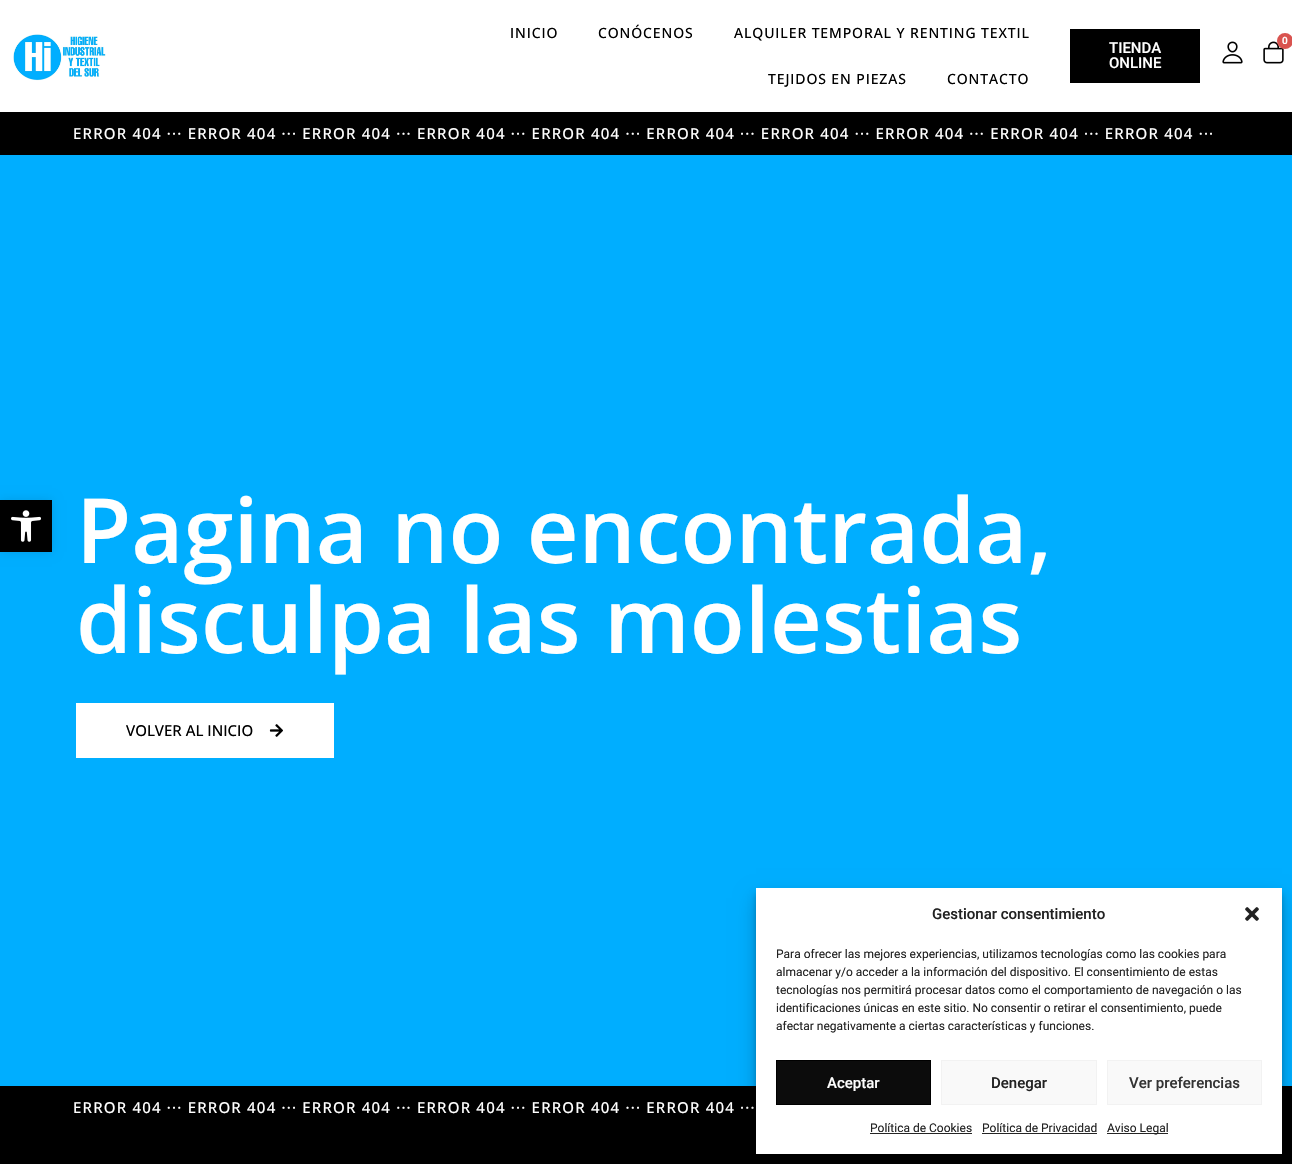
void draw(SkCanvas* canvas) {
    SkPaint paint;
    paint.setAntiAlias(true);
    auto face = [&](const char* family, int weight, float size, bool italic = false) {
        SkFontStyle style(weight, SkFontStyle::kNormal_Width,
            italic ? SkFontStyle::kItalic_Slant : SkFontStyle::kUpright_Slant);
        SkFont result(fontMgr->matchFamilyStyle(family, style), size);
        result.setSubpixel(true);
        return result;
    };
    auto write = [&](const char* s, float x, float y, const SkFont& font, SkColor color) {
        SkPaint ink(SkColor4f::FromColor(color));
        ink.setAntiAlias(true);
        canvas->drawString(s, x, y, font, ink);
    };
    auto writeSpaced = [&](const char* s, float x, float y, const SkFont& font, const SkPaint& ink, float letter, float word) {
        std::vector<SkGlyphID> glyphs(font.countText(s, strlen(s), SkTextEncoding::kUTF8));
        std::vector<float> xs(glyphs.size());
        font.textToGlyphs(s, strlen(s), SkTextEncoding::kUTF8, glyphs);
        font.getXPos(glyphs, xs, x);
        float extra = 0;
        for (size_t i = 0; i < glyphs.size(); i++) {
            xs[i] += extra;
            extra += letter + word * (glyphs[i] == font.unicharToGlyph(' '));
        }
        canvas->drawTextBlob(SkTextBlob::MakeFromPosHGlyphs(glyphs, xs, y, font), 0, 0, ink);
    };
    auto block = [&](float x, float y, float w, float h, SkColor color) {
        SkPaint ink(SkColor4f::FromColor(color));
        ink.setAntiAlias(true);
        canvas->drawRect(SkRect::MakeXYWH(x, y, w, h), ink);
    };
    auto paste = [&](const char* path, float x, float y, float w, float h) {
        auto image = SkImages::DeferredFromEncodedData(SkData::MakeFromFileName(path));
        canvas->drawImageRect(image, SkRect::MakeXYWH(x, y, w, h), SkSamplingOptions());
    };
    canvas->clear(SK_ColorWHITE);
    paste("pic1.png", 13, 34, 93, 47);
    auto kFont1 = face("Open Sans", 500, 14);
    paint.setColor(SK_ColorBLACK);
    writeSpaced("INICIO", 510, 38, kFont1, paint, 0.9f, 0);
    writeSpaced("CONÓCENOS", 598, 38, kFont1, paint, 0.9f, 0);
    writeSpaced("ALQUILER TEMPORAL Y RENTING TEXTIL", 734, 38, kFont1, paint, 0.9f, 0);
    writeSpaced("TEJIDOS EN PIEZAS", 768, 84, kFont1, paint, 0.9f, 0);
    writeSpaced("CONTACTO", 947, 84, kFont1, paint, 0.9f, 0);
    block(1070, 29, 130, 54, SK_ColorBLACK);
    auto kFont2 = face("Roboto", 500, 15);
    write("TIENDA", 1109, 53, kFont2, SK_ColorWHITE);
    write("ONLINE", 1109, 68, kFont2, SK_ColorWHITE);
    paste("pic2.png", 1222, 41, 21, 23);
    paste("pic3.png", 1263, 41, 21, 23);
    paint.setColor(SkColorSetRGB(217, 83, 79));
    canvas->drawCircle(1285, 41, 8, paint);
    auto kFont3 = face("Roboto", 600, 10);
    write("0", 1282, 44, kFont3, SK_ColorWHITE);
    block(0, 155, 1292, 931, SkColorSetRGB(0, 174, 255));
    paint.setColor(SkColorSetARGB(26, 0, 0, 0));
    paint.setMaskFilter(SkMaskFilter::MakeBlur(kNormal_SkBlurStyle, 5));
    canvas->drawRect(SkRect::MakeXYWH(0, 500, 52, 52), paint);
    paint.setMaskFilter(nullptr);
    block(0, 500, 52, 52, SK_ColorBLACK);
    paste("pic4.png", 11, 510, 30, 32);
    block(0, 112, 1292, 43, SK_ColorBLACK);
    auto kFont4 = face("Open Sans", 500, 15);
    paint.setColor(SK_ColorWHITE);
    writeSpaced("ERROR 404 ··· ERROR 404 ··· ERROR 404 ··· ERROR 404 ··· ERROR 404 ··· ERROR 404 ··· ERROR 404 ··· ERROR 404 ··· ERROR 404 ··· ERROR 404 ···", 73, 139, kFont4, paint, 1.2f, 0);
    auto kFont5 = face("Open Sans", 600, 90);
    write("Pagina no encontrada,", 76, 563, kFont5, SK_ColorWHITE);
    write("disculpa las molestias", 76, 653, kFont5, SK_ColorWHITE);
    block(76, 703, 258, 55, SK_ColorWHITE);
    write("VOLVER AL INICIO", 126, 736, kFont4, SK_ColorBLACK);
    paste("pic5.png", 269, 724, 14, 13);
    block(0, 1086, 1292, 78, SK_ColorBLACK);
    writeSpaced("ERROR 404 ··· ERROR 404 ··· ERROR 404 ··· ERROR 404 ··· ERROR 404 ··· ERROR 404 ···", 73, 1113, kFont4, paint, 1.2f, 0);
    paint.setColor(SkColorSetARGB(59, 0, 0, 0));
    paint.setMaskFilter(SkMaskFilter::MakeBlur(kNormal_SkBlurStyle, 3));
    canvas->drawRect(SkRect::MakeXYWH(756, 894, 526, 266), paint);
    paint.setMaskFilter(nullptr);
    paint.setColor(SkColorSetARGB(48, 0, 0, 0));
    paint.setMaskFilter(SkMaskFilter::MakeBlur(kNormal_SkBlurStyle, 10));
    canvas->drawRect(SkRect::MakeXYWH(756, 898, 526, 266), paint);
    paint.setMaskFilter(nullptr);
    block(756, 888, 526, 266, SK_ColorWHITE);
    write("Gestionar consentimiento", 932, 919, kFont2, SkColorSetRGB(34, 34, 34));
    paste("pic6.png", 1245, 907, 14, 14);
    auto kFont6 = face("Roboto", 400, 12);
    write("Para ofrecer las mejores experiencias, utilizamos tecnologías como las cookies para", 776, 958, kFont6, SkColorSetRGB(34, 34, 34));
    write("almacenar y/o acceder a la información del dispositivo. El consentimiento de estas", 776, 976, kFont6, SkColorSetRGB(34, 34, 34));
    write("tecnologías nos permitirá procesar datos como el comportamiento de navegación o las", 776, 994, kFont6, SkColorSetRGB(34, 34, 34));
    write("identificaciones únicas en este sitio. No consentir o retirar el consentimiento, puede", 776, 1012, kFont6, SkColorSetRGB(34, 34, 34));
    write("afectar negativamente a ciertas características y funciones.", 776, 1030, kFont6, SkColorSetRGB(34, 34, 34));
    paint.setColor(SkColorSetRGB(12, 12, 12));
    canvas->drawRect(SkRect::MakeXYWH(776.5f, 1060.5f, 154, 44), paint);
    paint.setStyle(SkPaint::kStroke_Style);
    paint.setStrokeWidth(1);
    paint.setColor(SK_ColorBLACK);
    canvas->drawRect(SkRect::MakeXYWH(776.5f, 1060.5f, 154, 44), paint);
    write("Aceptar", 827, 1088, kFont2, SK_ColorWHITE);
    paint.setStyle(SkPaint::kFill_Style);
    paint.setColor(SkColorSetRGB(249, 249, 249));
    canvas->drawRect(SkRect::MakeXYWH(941.5f, 1060.5f, 155, 44), paint);
    paint.setStyle(SkPaint::kStroke_Style);
    paint.setColor(SkColorSetRGB(242, 242, 242));
    canvas->drawRect(SkRect::MakeXYWH(941.5f, 1060.5f, 155, 44), paint);
    write("Denegar", 991, 1088, kFont2, SkColorSetRGB(34, 34, 34));
    paint.setStyle(SkPaint::kFill_Style);
    paint.setColor(SkColorSetRGB(249, 249, 249));
    canvas->drawRect(SkRect::MakeXYWH(1107.5f, 1060.5f, 154, 44), paint);
    paint.setStyle(SkPaint::kStroke_Style);
    paint.setColor(SkColorSetRGB(242, 242, 242));
    canvas->drawRect(SkRect::MakeXYWH(1107.5f, 1060.5f, 154, 44), paint);
    write("Ver preferencias", 1129, 1088, kFont2, SkColorSetRGB(51, 51, 51));
    write("Política de Cookies", 870, 1132, kFont6, SkColorSetRGB(34, 34, 34));
    block(870, 1133, 102, 1, SkColorSetRGB(37, 37, 37));
    write("Política de Privacidad", 982, 1132, kFont6, SkColorSetRGB(34, 34, 34));
    block(982, 1133, 115, 1, SkColorSetRGB(37, 37, 37));
    block(1107, 1133, 61, 1, SkColorSetRGB(37, 37, 37));
    write("Aviso Legal", 1107, 1132, kFont6, SkColorSetRGB(34, 34, 34));
}
